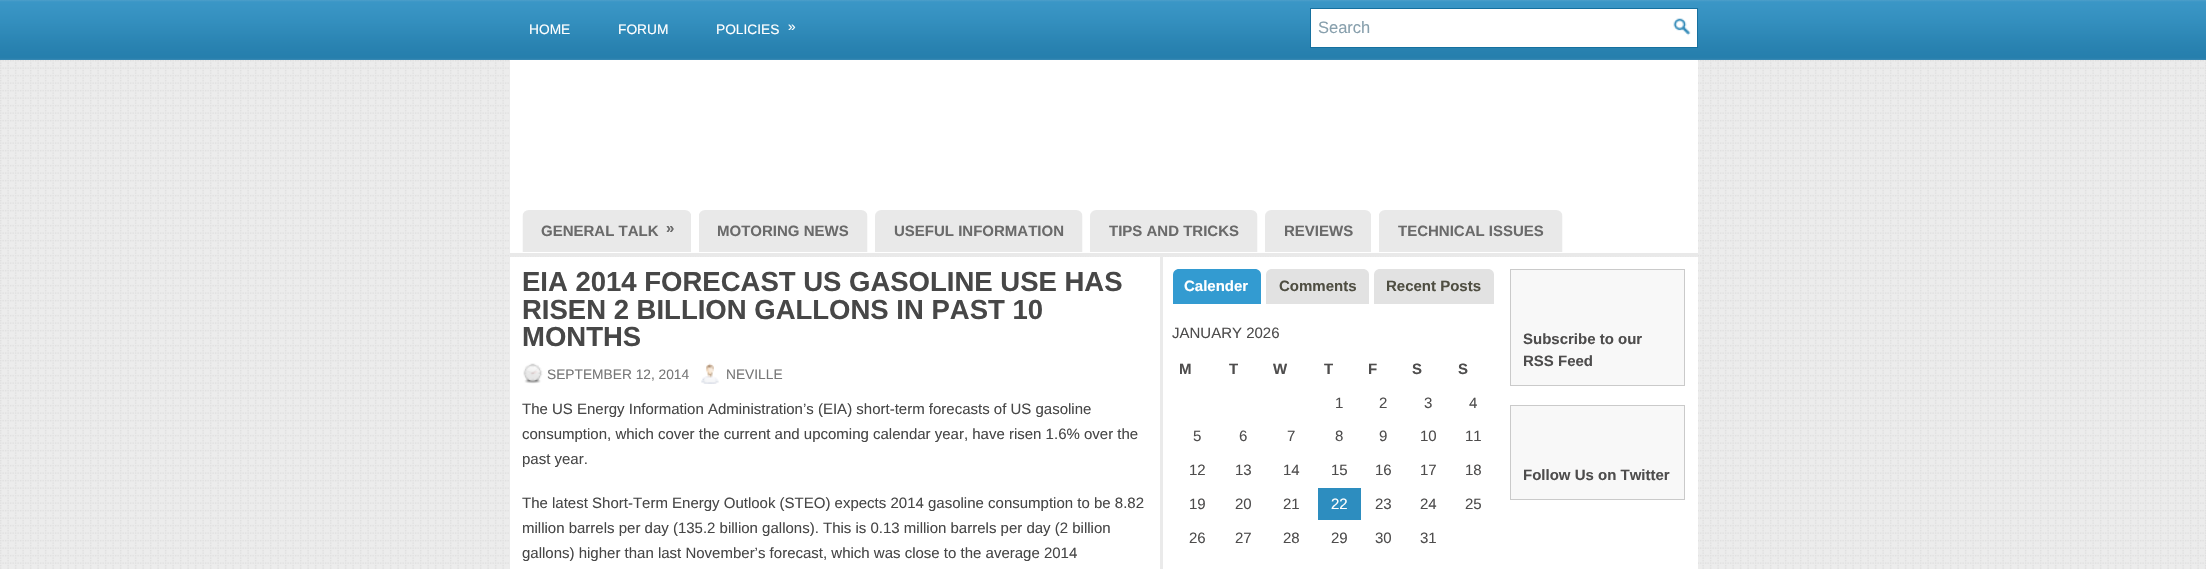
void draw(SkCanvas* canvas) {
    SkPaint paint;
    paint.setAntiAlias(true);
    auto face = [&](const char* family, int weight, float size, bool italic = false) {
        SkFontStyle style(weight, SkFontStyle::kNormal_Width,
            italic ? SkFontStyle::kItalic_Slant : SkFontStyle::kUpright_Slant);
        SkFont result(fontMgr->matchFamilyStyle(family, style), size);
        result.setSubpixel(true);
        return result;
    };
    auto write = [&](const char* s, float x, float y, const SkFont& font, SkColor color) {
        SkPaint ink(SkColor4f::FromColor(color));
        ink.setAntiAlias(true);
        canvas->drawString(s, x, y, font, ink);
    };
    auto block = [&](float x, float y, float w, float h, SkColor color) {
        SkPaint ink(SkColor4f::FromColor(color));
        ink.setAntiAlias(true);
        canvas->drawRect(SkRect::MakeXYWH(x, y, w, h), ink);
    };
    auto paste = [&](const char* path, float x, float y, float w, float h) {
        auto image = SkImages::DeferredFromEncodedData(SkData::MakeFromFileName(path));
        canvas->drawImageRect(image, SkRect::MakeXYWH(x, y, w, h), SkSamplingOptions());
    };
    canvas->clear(SK_ColorWHITE);
    paste("pic1.png", 0, 60, 2206, 509);
    paste("pic2.png", 0, 0, 2206, 60);
    auto kFont1 = face("Liberation Sans", 400, 13.75f);
    write("HOME", 529, 34, kFont1, SK_ColorWHITE);
    write("FORUM", 618, 34, kFont1, SK_ColorWHITE);
    write("POLICIES", 716, 34, kFont1, SK_ColorWHITE);
    write("»", 788, 31, kFont1, SK_ColorWHITE);
    paint.setColor(SK_ColorWHITE);
    canvas->drawRect(SkRect::MakeXYWH(1310.5f, 8.5f, 387, 39), paint);
    paint.setStyle(SkPaint::kStroke_Style);
    paint.setStrokeWidth(1);
    paint.setColor(SkColorSetRGB(22, 112, 159));
    canvas->drawRect(SkRect::MakeXYWH(1310.5f, 8.5f, 387, 39), paint);
    auto kFont2 = face("Liberation Sans", 400, 16.5f);
    write("Search", 1318, 33, kFont2, SkColorSetRGB(136, 160, 173));
    paste("pic3.png", 1673, 18, 18, 18);
    block(510, 60, 1188, 193, SK_ColorWHITE);
    block(510, 253, 1188, 3, SkColorSetRGB(233, 233, 233));
    paste("pic4.png", 522, 210, 169, 42);
    auto kFont3 = face("Liberation Sans", 700, 15);
    write("GENERAL TALK", 541, 236, kFont3, SkColorSetRGB(106, 106, 106));
    write("»", 666, 233, kFont3, SkColorSetRGB(106, 106, 106));
    paste("pic5.png", 699, 210, 169, 42);
    write("MOTORING NEWS", 717, 236, kFont3, SkColorSetRGB(106, 106, 106));
    paste("pic6.png", 875, 210, 208, 42);
    write("USEFUL INFORMATION", 894, 236, kFont3, SkColorSetRGB(106, 106, 106));
    paste("pic7.png", 1090, 210, 168, 42);
    write("TIPS AND TRICKS", 1109, 236, kFont3, SkColorSetRGB(106, 106, 106));
    paste("pic8.png", 1265, 210, 106, 42);
    write("REVIEWS", 1284, 236, kFont3, SkColorSetRGB(106, 106, 106));
    paste("pic9.png", 1379, 210, 184, 42);
    write("TECHNICAL ISSUES", 1398, 236, kFont3, SkColorSetRGB(106, 106, 106));
    block(510, 257, 1188, 312, SK_ColorWHITE);
    block(1160, 256, 3, 313, SkColorSetRGB(234, 234, 234));
    auto kFont4 = face("Liberation Sans", 700, 27.5f);
    write("EIA 2014 FORECAST US GASOLINE USE HAS", 522, 291, kFont4, SkColorSetRGB(71, 71, 71));
    write("RISEN 2 BILLION GALLONS IN PAST 10", 522, 319, kFont4, SkColorSetRGB(71, 71, 71));
    write("MONTHS", 522, 346, kFont4, SkColorSetRGB(71, 71, 71));
    paste("pic10.png", 523, 363, 20, 21);
    write("SEPTEMBER 12, 2014", 547, 379, kFont1, SkColorSetRGB(119, 119, 119));
    paste("pic11.png", 701, 363, 18, 21);
    write("NEVILLE", 726, 379, kFont1, SkColorSetRGB(119, 119, 119));
    auto kFont5 = face("Liberation Sans", 400, 15);
    write("The US Energy Information Administration’s (EIA) short-term forecasts of US gasoline", 522, 414, kFont5, SkColorSetRGB(71, 71, 71));
    write("consumption, which cover the current and upcoming calendar year, have risen 1.6% over the", 522, 439, kFont5, SkColorSetRGB(71, 71, 71));
    write("past year.", 522, 464, kFont5, SkColorSetRGB(71, 71, 71));
    write("The latest Short-Term Energy Outlook (STEO) expects 2014 gasoline consumption to be 8.82", 522, 508, kFont5, SkColorSetRGB(71, 71, 71));
    write("million barrels per day (135.2 billion gallons). This is 0.13 million barrels per day (2 billion", 522, 533, kFont5, SkColorSetRGB(71, 71, 71));
    write("gallons) higher than last November’s forecast, which was close to the average 2014", 522, 558, kFont5, SkColorSetRGB(71, 71, 71));
    paint.setStyle(SkPaint::kFill_Style);
    paint.setColor(SkColorSetRGB(51, 155, 209));
    canvas->drawPath(SkPathBuilder().moveTo(1179, 269).lineTo(1255, 269).cubicTo(1258.5f, 269, 1261, 271.5f, 1261, 275).lineTo(1261, 304).lineTo(1173, 304).lineTo(1173, 275).cubicTo(1173, 271.5f, 1175.5f, 269, 1179, 269).close().detach(), paint);
    write("Calender", 1184, 291, kFont3, SK_ColorWHITE);
    paint.setColor(SkColorSetRGB(226, 226, 226));
    canvas->drawPath(SkPathBuilder().moveTo(1272, 269).lineTo(1363, 269).cubicTo(1366.5f, 269, 1369, 271.5f, 1369, 275).lineTo(1369, 304).lineTo(1266, 304).lineTo(1266, 275).cubicTo(1266, 271.5f, 1268.5f, 269, 1272, 269).close().detach(), paint);
    write("Comments", 1279, 291, kFont3, SkColorSetRGB(79, 78, 66));
    canvas->drawPath(SkPathBuilder().moveTo(1380, 269).lineTo(1488, 269).cubicTo(1491.5f, 269, 1494, 271.5f, 1494, 275).lineTo(1494, 304).lineTo(1374, 304).lineTo(1374, 275).cubicTo(1374, 271.5f, 1376.5f, 269, 1380, 269).close().detach(), paint);
    write("Recent Posts", 1386, 291, kFont3, SkColorSetRGB(79, 78, 66));
    write("JANUARY 2026", 1172, 338, kFont5, SkColorSetRGB(78, 77, 77));
    write("M", 1179, 374, kFont3, SkColorSetRGB(78, 77, 77));
    write("T", 1229, 374, kFont3, SkColorSetRGB(78, 77, 77));
    write("W", 1273, 374, kFont3, SkColorSetRGB(78, 77, 77));
    write("T", 1324, 374, kFont3, SkColorSetRGB(78, 77, 77));
    write("F", 1368, 374, kFont3, SkColorSetRGB(78, 77, 77));
    write("S", 1412, 374, kFont3, SkColorSetRGB(78, 77, 77));
    write("S", 1458, 374, kFont3, SkColorSetRGB(78, 77, 77));
    write("1", 1335, 408, kFont5, SkColorSetRGB(78, 77, 77));
    write("2", 1379, 408, kFont5, SkColorSetRGB(78, 77, 77));
    write("3", 1424, 408, kFont5, SkColorSetRGB(78, 77, 77));
    write("4", 1469, 408, kFont5, SkColorSetRGB(78, 77, 77));
    write("5", 1193, 441, kFont5, SkColorSetRGB(78, 77, 77));
    write("6", 1239, 441, kFont5, SkColorSetRGB(78, 77, 77));
    write("7", 1287, 441, kFont5, SkColorSetRGB(78, 77, 77));
    write("8", 1335, 441, kFont5, SkColorSetRGB(78, 77, 77));
    write("9", 1379, 441, kFont5, SkColorSetRGB(78, 77, 77));
    write("10", 1420, 441, kFont5, SkColorSetRGB(78, 77, 77));
    write("11", 1465, 441, kFont5, SkColorSetRGB(78, 77, 77));
    write("12", 1189, 475, kFont5, SkColorSetRGB(78, 77, 77));
    write("13", 1235, 475, kFont5, SkColorSetRGB(78, 77, 77));
    write("14", 1283, 475, kFont5, SkColorSetRGB(78, 77, 77));
    write("15", 1331, 475, kFont5, SkColorSetRGB(78, 77, 77));
    write("16", 1375, 475, kFont5, SkColorSetRGB(78, 77, 77));
    write("17", 1420, 475, kFont5, SkColorSetRGB(78, 77, 77));
    write("18", 1465, 475, kFont5, SkColorSetRGB(78, 77, 77));
    write("19", 1189, 509, kFont5, SkColorSetRGB(78, 77, 77));
    write("20", 1235, 509, kFont5, SkColorSetRGB(78, 77, 77));
    write("21", 1283, 509, kFont5, SkColorSetRGB(78, 77, 77));
    block(1318, 488, 43, 32, SkColorSetRGB(45, 141, 191));
    write("22", 1331, 509, kFont5, SK_ColorWHITE);
    write("23", 1375, 509, kFont5, SkColorSetRGB(78, 77, 77));
    write("24", 1420, 509, kFont5, SkColorSetRGB(78, 77, 77));
    write("25", 1465, 509, kFont5, SkColorSetRGB(78, 77, 77));
    write("26", 1189, 543, kFont5, SkColorSetRGB(78, 77, 77));
    write("27", 1235, 543, kFont5, SkColorSetRGB(78, 77, 77));
    write("28", 1283, 543, kFont5, SkColorSetRGB(78, 77, 77));
    write("29", 1331, 543, kFont5, SkColorSetRGB(78, 77, 77));
    write("30", 1375, 543, kFont5, SkColorSetRGB(78, 77, 77));
    write("31", 1420, 543, kFont5, SkColorSetRGB(78, 77, 77));
    paint.setColor(SkColorSetRGB(248, 248, 248));
    canvas->drawRect(SkRect::MakeXYWH(1510.5f, 269.5f, 174, 116), paint);
    paint.setStyle(SkPaint::kStroke_Style);
    paint.setColor(SkColorSetRGB(202, 202, 202));
    canvas->drawRect(SkRect::MakeXYWH(1510.5f, 269.5f, 174, 116), paint);
    write("Subscribe to our", 1523, 344, kFont3, SkColorSetRGB(78, 77, 77));
    write("RSS Feed", 1523, 366, kFont3, SkColorSetRGB(78, 77, 77));
    paint.setStyle(SkPaint::kFill_Style);
    paint.setColor(SkColorSetRGB(248, 248, 248));
    canvas->drawRect(SkRect::MakeXYWH(1510.5f, 405.5f, 174, 94), paint);
    paint.setStyle(SkPaint::kStroke_Style);
    paint.setColor(SkColorSetRGB(202, 202, 202));
    canvas->drawRect(SkRect::MakeXYWH(1510.5f, 405.5f, 174, 94), paint);
    write("Follow Us on Twitter", 1523, 480, kFont3, SkColorSetRGB(78, 77, 77));
}
